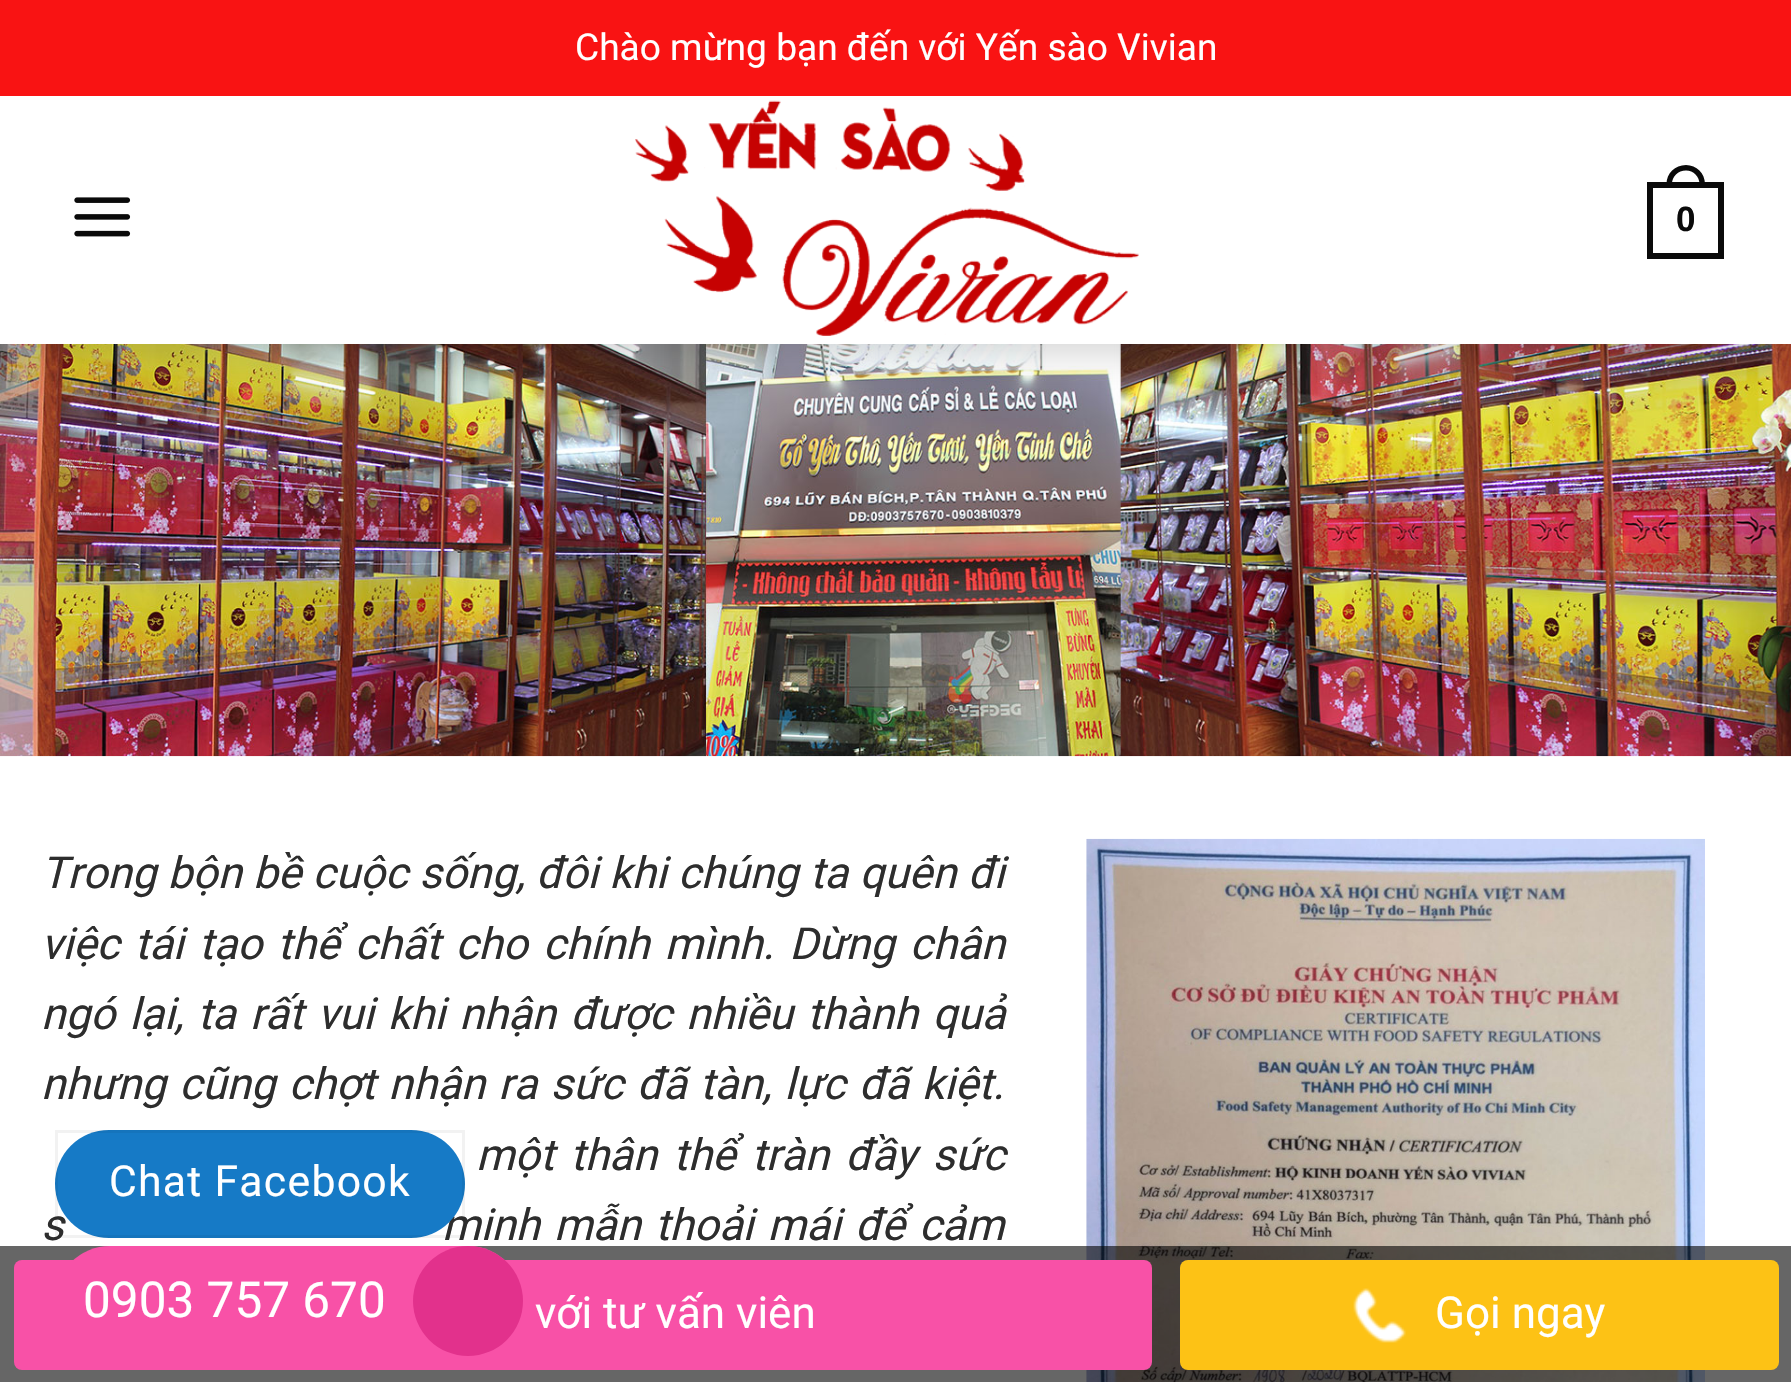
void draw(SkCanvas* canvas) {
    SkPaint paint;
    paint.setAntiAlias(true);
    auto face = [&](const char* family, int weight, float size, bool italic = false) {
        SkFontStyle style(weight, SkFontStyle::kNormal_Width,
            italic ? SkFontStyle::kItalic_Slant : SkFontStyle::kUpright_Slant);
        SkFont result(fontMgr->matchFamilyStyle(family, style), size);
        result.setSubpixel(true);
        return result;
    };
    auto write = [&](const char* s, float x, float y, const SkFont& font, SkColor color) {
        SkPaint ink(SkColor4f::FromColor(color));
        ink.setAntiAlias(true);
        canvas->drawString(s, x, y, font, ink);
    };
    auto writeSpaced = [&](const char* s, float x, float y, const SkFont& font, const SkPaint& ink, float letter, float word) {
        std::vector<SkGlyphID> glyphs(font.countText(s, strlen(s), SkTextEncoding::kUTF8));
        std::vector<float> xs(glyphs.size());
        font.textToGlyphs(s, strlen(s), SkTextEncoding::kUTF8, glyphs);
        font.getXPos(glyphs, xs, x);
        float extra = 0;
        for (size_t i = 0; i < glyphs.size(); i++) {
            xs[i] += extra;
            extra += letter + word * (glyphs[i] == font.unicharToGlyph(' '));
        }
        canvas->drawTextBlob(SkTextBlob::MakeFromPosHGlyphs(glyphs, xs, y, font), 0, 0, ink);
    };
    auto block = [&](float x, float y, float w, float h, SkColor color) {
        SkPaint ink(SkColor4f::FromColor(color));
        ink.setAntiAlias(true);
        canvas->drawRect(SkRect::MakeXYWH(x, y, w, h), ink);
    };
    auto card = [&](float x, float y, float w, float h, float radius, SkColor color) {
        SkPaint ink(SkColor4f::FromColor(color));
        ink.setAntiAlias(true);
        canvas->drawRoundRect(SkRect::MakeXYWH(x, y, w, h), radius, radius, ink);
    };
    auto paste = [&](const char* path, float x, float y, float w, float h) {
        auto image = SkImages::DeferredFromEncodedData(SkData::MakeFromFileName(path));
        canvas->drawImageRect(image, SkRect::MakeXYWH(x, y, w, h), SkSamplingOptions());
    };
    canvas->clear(SK_ColorWHITE);
    paste("pic3.png", 0, 343, 1791, 414);
    block(0, 343, 1791, 1, SkColorSetARGB(230, 255, 255, 255));
    canvas->save();
    canvas->clipPath(SkPathBuilder(SkPathFillType::kEvenOdd).moveTo(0, 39).lineTo(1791, 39).lineTo(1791, 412).lineTo(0, 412).close().moveTo(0, 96).lineTo(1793, 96).lineTo(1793, 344).lineTo(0, 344).close().detach(), true);
    paint.setColor(SkColorSetARGB(51, 0, 0, 0));
    paint.setMaskFilter(SkMaskFilter::MakeBlur(kNormal_SkBlurStyle, 20.5f));
    canvas->drawRect(SkRect::MakeXYWH(6, 102, 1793, 247), paint);
    paint.setMaskFilter(nullptr);
    canvas->restore();
    block(0, 0, 1791, 96, SkColorSetRGB(249, 19, 19));
    auto kFont1 = face("Roboto", 400, 37.1f);
    write("Chào mừng bạn đến với Yến sào Vivian", 575, 60, kFont1, SK_ColorWHITE);
    paste("pic1.png", 74, 197, 57, 40);
    paste("pic2.png", 635, 100, 504, 236);
    paint.setStyle(SkPaint::kStroke_Style);
    paint.setStrokeWidth(6);
    paint.setColor(SkColorSetRGB(10, 10, 10));
    canvas->drawRect(SkRect::MakeXYWH(1650, 185, 71, 71), paint);
    paint.setStyle(SkPaint::kFill_Style);
    canvas->drawPath(SkPathBuilder(SkPathFillType::kEvenOdd).moveTo(1686, 165).cubicTo(1696.5f, 165, 1705, 173.5f, 1705, 184).lineTo(1705, 187).lineTo(1666.5f, 187).lineTo(1666.5f, 184).cubicTo(1666.5f, 173.5f, 1675, 165, 1686, 165).close().moveTo(1686, 170.5f).cubicTo(1693.5f, 170.5f, 1699.5f, 176.5f, 1699.5f, 184).lineTo(1699.5f, 187).lineTo(1672, 187).lineTo(1672, 184).cubicTo(1672, 176.5f, 1678, 170.5f, 1686, 170.5f).close().detach(), paint);
    auto kFont2 = face("Liberation Sans", 700, 35);
    write("0", 1676, 231, kFont2, SkColorSetRGB(10, 10, 10));
    auto kFont3 = face("Roboto", 400, 44, true);
    paint.setColor(SkColorSetRGB(45, 45, 45));
    writeSpaced("Trong bộn bề cuộc sống, đôi khi chúng ta quên đi", 41, 888, kFont3, paint, 0, 0.4f);
    writeSpaced("việc tái tạo thể chất cho chính mình. Dừng chân", 41, 959, kFont3, paint, 0, 4.25f);
    writeSpaced("ngó lại, ta rất vui khi nhận được nhiều thành quả", 41, 1029, kFont3, paint, 0, 3.25f);
    writeSpaced("nhưng cũng chợt nhận ra sức đã tàn, lực đã kiệt.", 41, 1099, kFont3, paint, 0, 2.25f);
    writeSpaced("một thân thể tràn đầy sức", 476, 1170, kFont3, paint, 0, 5.25f);
    writeSpaced("s", 41, 1240, kFont3, paint, 0, 3.25f);
    writeSpaced("minh mẫn thoải mái để cảm", 442, 1240, kFont3, paint, 0, 3.25f);
    paste("pic4.png", 1086, 838, 619, 544);
    card(55, 1130, 410, 108, 54, SkColorSetRGB(22, 122, 198));
    paint.setStyle(SkPaint::kStroke_Style);
    paint.setStrokeWidth(3);
    paint.setColor(SkColorSetARGB(13, 0, 0, 0));
    canvas->drawRect(SkRect::MakeXYWH(56.5f, 1131.5f, 407, 105), paint);
    auto kFont4 = face("Roboto", 400, 42.75f);
    paint.setStyle(SkPaint::kFill_Style);
    paint.setColor(SK_ColorWHITE);
    writeSpaced("Chat Facebook", 109, 1196, kFont4, paint, 1.25f, 0);
    block(0, 1246, 1791, 136, SkColorSetARGB(153, 0, 0, 0));
    card(14, 1260, 1138, 110, 8, SkColorSetRGB(248, 81, 167));
    card(55, 1246, 468, 110, 55, SkColorSetRGB(248, 81, 167));
    auto kFont5 = face("Roboto", 400, 49.5f);
    write("0903 757 670", 83, 1317, kFont5, SK_ColorWHITE);
    paint.setColor(SkColorSetRGB(226, 49, 140));
    canvas->drawCircle(468, 1301, 55, paint);
    auto kFont6 = face("Roboto", 400, 44);
    write("với tư vấn viên", 535, 1328, kFont6, SK_ColorWHITE);
    card(1180, 1260, 599, 110, 8, SkColorSetRGB(253, 194, 21));
    paste("pic5.png", 1353, 1288, 53, 55);
    write("Gọi ngay", 1435, 1328, kFont6, SK_ColorWHITE);
}
